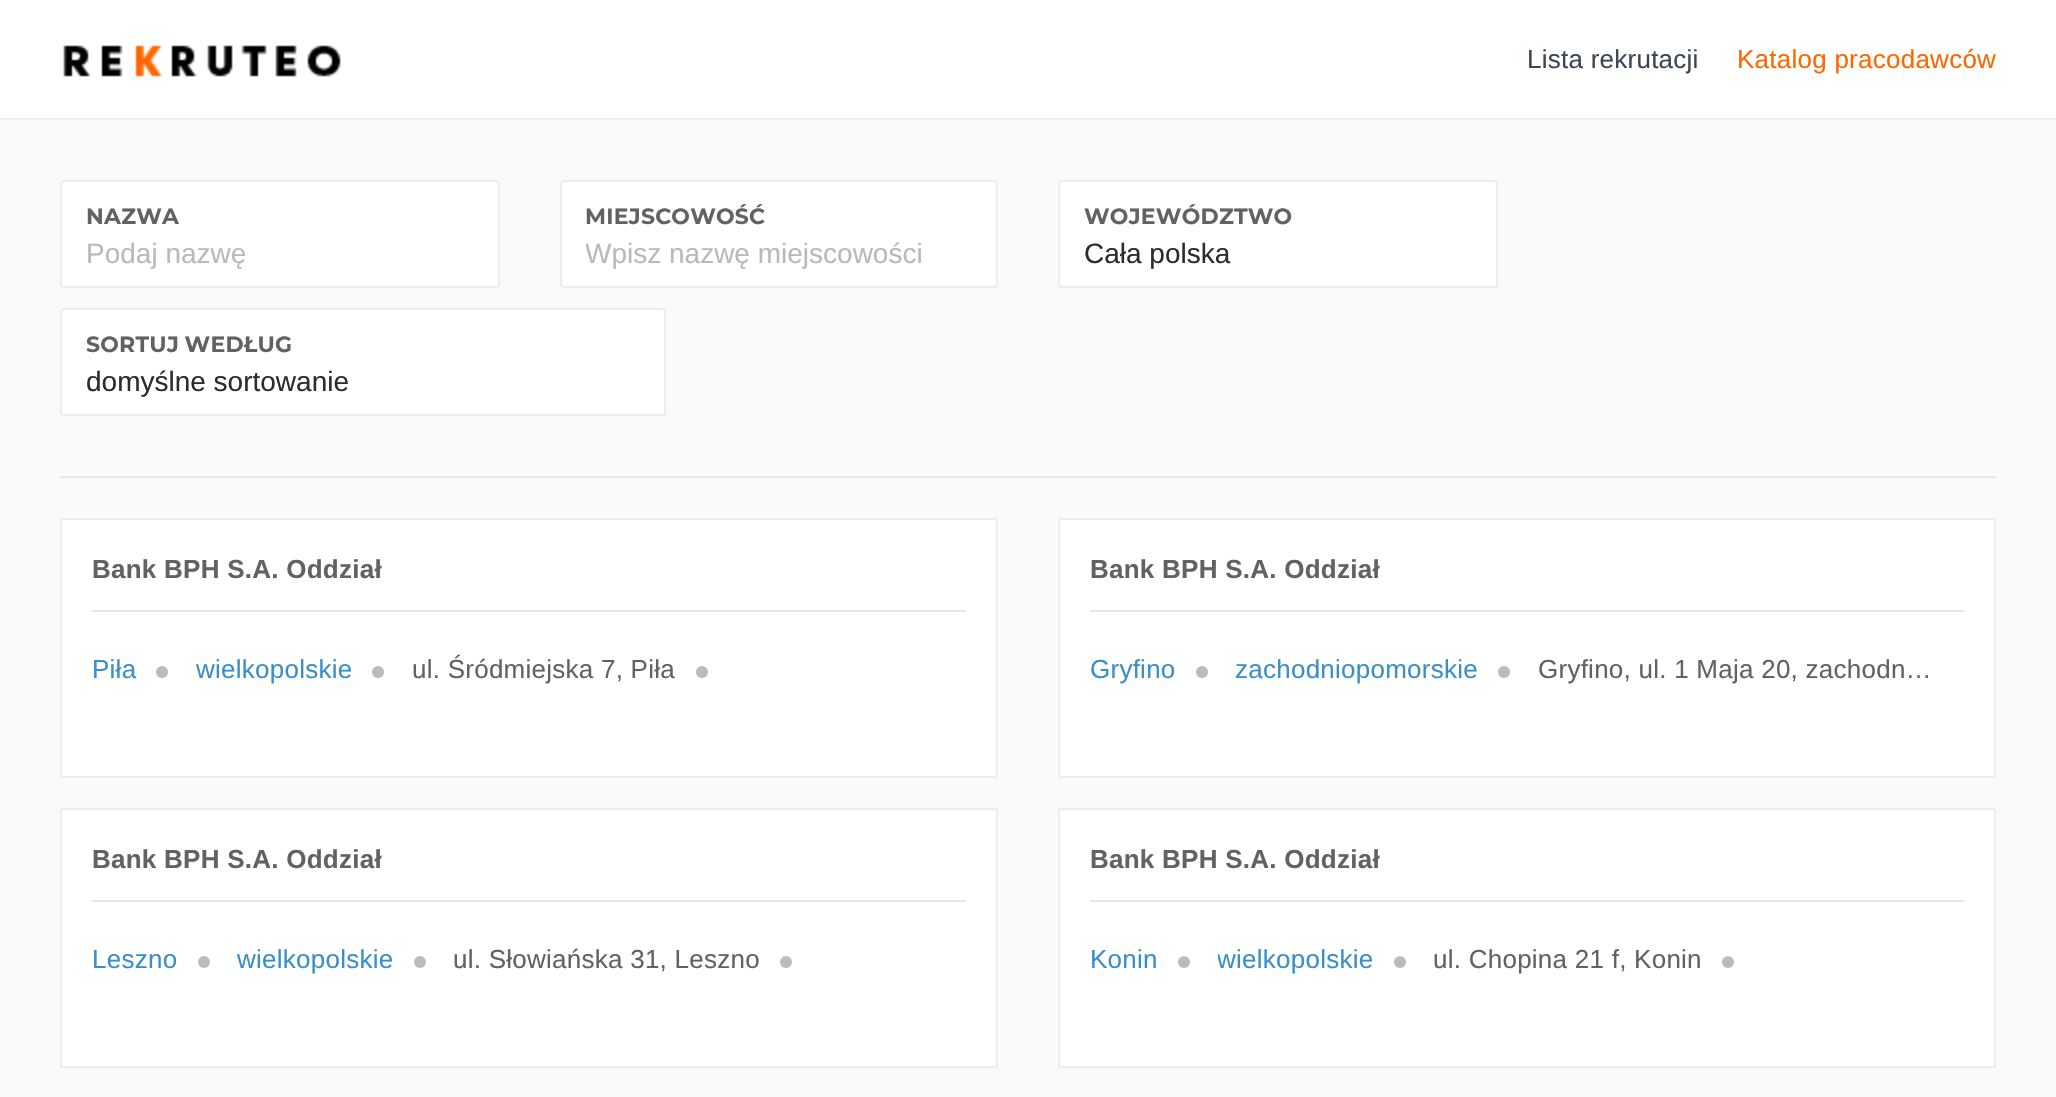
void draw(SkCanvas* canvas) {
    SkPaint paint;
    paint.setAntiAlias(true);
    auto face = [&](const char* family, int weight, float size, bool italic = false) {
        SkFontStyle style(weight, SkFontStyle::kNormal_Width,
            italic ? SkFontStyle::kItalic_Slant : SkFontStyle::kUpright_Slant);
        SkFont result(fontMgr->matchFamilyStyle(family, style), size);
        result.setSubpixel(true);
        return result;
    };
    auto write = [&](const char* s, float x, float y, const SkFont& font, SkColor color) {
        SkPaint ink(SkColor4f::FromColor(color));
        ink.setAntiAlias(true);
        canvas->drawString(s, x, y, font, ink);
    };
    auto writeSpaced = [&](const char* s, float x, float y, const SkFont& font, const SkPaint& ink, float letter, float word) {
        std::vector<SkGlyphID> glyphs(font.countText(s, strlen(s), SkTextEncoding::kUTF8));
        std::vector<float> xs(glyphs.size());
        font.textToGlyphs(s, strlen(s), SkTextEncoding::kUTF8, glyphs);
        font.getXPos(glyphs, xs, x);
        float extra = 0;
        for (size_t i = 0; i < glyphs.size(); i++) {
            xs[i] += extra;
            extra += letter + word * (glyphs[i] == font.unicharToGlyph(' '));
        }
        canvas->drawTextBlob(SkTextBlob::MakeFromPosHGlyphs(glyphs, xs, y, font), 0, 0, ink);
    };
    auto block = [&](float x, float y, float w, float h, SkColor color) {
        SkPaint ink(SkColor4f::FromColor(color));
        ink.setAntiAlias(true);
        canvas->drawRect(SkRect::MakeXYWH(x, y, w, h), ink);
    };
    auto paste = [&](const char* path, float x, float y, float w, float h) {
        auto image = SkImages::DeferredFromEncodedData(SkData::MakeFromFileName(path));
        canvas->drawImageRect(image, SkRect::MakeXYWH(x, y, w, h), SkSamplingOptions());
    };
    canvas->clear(SkColorSetRGB(250, 250, 250));
    block(0, 0, 2056, 118, SK_ColorWHITE);
    block(0, 118, 2056, 2, SkColorSetRGB(238, 238, 238));
    paste("pic1.png", 63, 45, 278, 32);
    auto kFont1 = face("Liberation Sans", 400, 26);
    paint.setColor(SkColorSetRGB(59, 71, 81));
    writeSpaced("Lista rekrutacji", 1527, 68, kFont1, paint, 0.25f, 0);
    paint.setColor(SkColorSetRGB(255, 102, 0));
    writeSpaced("Katalog pracodawców", 1737, 68, kFont1, paint, 0.25f, 0);
    paint.setColor(SK_ColorWHITE);
    canvas->drawRoundRect(SkRect::MakeXYWH(61, 181, 438, 106), 3, 3, paint);
    paint.setStyle(SkPaint::kStroke_Style);
    paint.setStrokeWidth(2);
    paint.setColor(SkColorSetRGB(237, 237, 237));
    canvas->drawRoundRect(SkRect::MakeXYWH(61, 181, 438, 106), 3, 3, paint);
    auto kFont2 = face("Montserrat", 700, 22);
    paint.setStyle(SkPaint::kFill_Style);
    paint.setColor(SkColorSetRGB(98, 98, 98));
    writeSpaced("NAZWA", 86, 224, kFont2, paint, 0.25f, 0);
    auto kFont3 = face("Liberation Sans", 400, 28);
    write("Podaj nazwę", 86, 263, kFont3, SkColorSetRGB(185, 185, 185));
    paint.setColor(SK_ColorWHITE);
    canvas->drawRoundRect(SkRect::MakeXYWH(561, 181, 436, 106), 3, 3, paint);
    paint.setStyle(SkPaint::kStroke_Style);
    paint.setColor(SkColorSetRGB(237, 237, 237));
    canvas->drawRoundRect(SkRect::MakeXYWH(561, 181, 436, 106), 3, 3, paint);
    paint.setStyle(SkPaint::kFill_Style);
    paint.setColor(SkColorSetRGB(98, 98, 98));
    writeSpaced("MIEJSCOWOŚĆ", 585, 224, kFont2, paint, 0.25f, 0);
    canvas->save();
    canvas->clipRect(SkRect::MakeXYWH(586, 238, 386, 32));
    write("Wpisz nazwę miejscowości", 585, 263, kFont3, SkColorSetRGB(185, 185, 185));
    canvas->restore();
    paint.setColor(SK_ColorWHITE);
    canvas->drawRoundRect(SkRect::MakeXYWH(1059, 181, 438, 106), 3, 3, paint);
    paint.setStyle(SkPaint::kStroke_Style);
    paint.setColor(SkColorSetRGB(237, 237, 237));
    canvas->drawRoundRect(SkRect::MakeXYWH(1059, 181, 438, 106), 3, 3, paint);
    paint.setStyle(SkPaint::kFill_Style);
    paint.setColor(SkColorSetRGB(98, 98, 98));
    writeSpaced("WOJEWÓDZTWO", 1084, 224, kFont2, paint, 0.25f, 0);
    write("Cała polska", 1084, 263, kFont3, SkColorSetRGB(44, 44, 44));
    paint.setColor(SK_ColorWHITE);
    canvas->drawRoundRect(SkRect::MakeXYWH(61, 309, 604, 106), 3, 3, paint);
    paint.setStyle(SkPaint::kStroke_Style);
    paint.setColor(SkColorSetRGB(237, 237, 237));
    canvas->drawRoundRect(SkRect::MakeXYWH(61, 309, 604, 106), 3, 3, paint);
    paint.setStyle(SkPaint::kFill_Style);
    paint.setColor(SkColorSetRGB(98, 98, 98));
    writeSpaced("SORTUJ WEDŁUG", 86, 352, kFont2, paint, 0.25f, -1);
    write("domyślne sortowanie", 86, 391, kFont3, SkColorSetRGB(44, 44, 44));
    block(60, 476, 1936, 2, SkColorSetRGB(230, 230, 230));
    paint.setColor(SK_ColorWHITE);
    canvas->drawRect(SkRect::MakeXYWH(61, 519, 936, 258), paint);
    paint.setStyle(SkPaint::kStroke_Style);
    paint.setColor(SkColorSetRGB(237, 237, 237));
    canvas->drawRect(SkRect::MakeXYWH(61, 519, 936, 258), paint);
    auto kFont4 = face("Liberation Sans", 700, 26);
    paint.setStyle(SkPaint::kFill_Style);
    paint.setColor(SkColorSetRGB(98, 98, 98));
    writeSpaced("Bank BPH S.A. Oddział", 92, 578, kFont4, paint, 0.25f, 0);
    block(92, 610, 874, 2, SkColorSetRGB(230, 230, 230));
    paint.setColor(SkColorSetRGB(58, 143, 200));
    writeSpaced("Piła", 92, 678, kFont1, paint, 0.25f, 0);
    paint.setColor(SkColorSetRGB(187, 187, 187));
    canvas->drawCircle(162, 672, 6, paint);
    paint.setColor(SkColorSetRGB(58, 143, 200));
    writeSpaced("wielkopolskie", 196, 678, kFont1, paint, 0.25f, 0);
    paint.setColor(SkColorSetRGB(187, 187, 187));
    canvas->drawCircle(378, 672, 6, paint);
    paint.setColor(SkColorSetRGB(98, 98, 98));
    writeSpaced("ul. Śródmiejska 7, Piła", 412, 678, kFont1, paint, 0.25f, 0);
    paint.setColor(SkColorSetRGB(187, 187, 187));
    canvas->drawCircle(702, 672, 6, paint);
    paint.setColor(SK_ColorWHITE);
    canvas->drawRect(SkRect::MakeXYWH(1059, 519, 936, 258), paint);
    paint.setStyle(SkPaint::kStroke_Style);
    paint.setColor(SkColorSetRGB(237, 237, 237));
    canvas->drawRect(SkRect::MakeXYWH(1059, 519, 936, 258), paint);
    paint.setStyle(SkPaint::kFill_Style);
    paint.setColor(SkColorSetRGB(98, 98, 98));
    writeSpaced("Bank BPH S.A. Oddział", 1090, 578, kFont4, paint, 0.25f, 0);
    block(1090, 610, 874, 2, SkColorSetRGB(230, 230, 230));
    paint.setColor(SkColorSetRGB(58, 143, 200));
    writeSpaced("Gryfino", 1090, 678, kFont1, paint, 0.25f, 0);
    paint.setColor(SkColorSetRGB(187, 187, 187));
    canvas->drawCircle(1202, 672, 6, paint);
    paint.setColor(SkColorSetRGB(58, 143, 200));
    writeSpaced("zachodniopomorskie", 1235, 678, kFont1, paint, 0.25f, 0);
    paint.setColor(SkColorSetRGB(187, 187, 187));
    canvas->drawCircle(1504, 672, 6, paint);
    paint.setColor(SkColorSetRGB(98, 98, 98));
    writeSpaced("Gryfino, ul. 1 Maja 20, zachodn…", 1538, 678, kFont1, paint, 0.25f, 0);
    paint.setColor(SK_ColorWHITE);
    canvas->drawRect(SkRect::MakeXYWH(61, 809, 936, 258), paint);
    paint.setStyle(SkPaint::kStroke_Style);
    paint.setColor(SkColorSetRGB(237, 237, 237));
    canvas->drawRect(SkRect::MakeXYWH(61, 809, 936, 258), paint);
    paint.setStyle(SkPaint::kFill_Style);
    paint.setColor(SkColorSetRGB(98, 98, 98));
    writeSpaced("Bank BPH S.A. Oddział", 92, 868, kFont4, paint, 0.25f, 0);
    block(92, 900, 874, 2, SkColorSetRGB(230, 230, 230));
    paint.setColor(SkColorSetRGB(58, 143, 200));
    writeSpaced("Leszno", 92, 968, kFont1, paint, 0.25f, 0);
    paint.setColor(SkColorSetRGB(187, 187, 187));
    canvas->drawCircle(204, 962, 6, paint);
    paint.setColor(SkColorSetRGB(58, 143, 200));
    writeSpaced("wielkopolskie", 237, 968, kFont1, paint, 0.25f, 0);
    paint.setColor(SkColorSetRGB(187, 187, 187));
    canvas->drawCircle(420, 962, 6, paint);
    paint.setColor(SkColorSetRGB(98, 98, 98));
    writeSpaced("ul. Słowiańska 31, Leszno", 453, 968, kFont1, paint, 0.25f, 0);
    paint.setColor(SkColorSetRGB(187, 187, 187));
    canvas->drawCircle(786, 962, 6, paint);
    paint.setColor(SK_ColorWHITE);
    canvas->drawRect(SkRect::MakeXYWH(1059, 809, 936, 258), paint);
    paint.setStyle(SkPaint::kStroke_Style);
    paint.setColor(SkColorSetRGB(237, 237, 237));
    canvas->drawRect(SkRect::MakeXYWH(1059, 809, 936, 258), paint);
    paint.setStyle(SkPaint::kFill_Style);
    paint.setColor(SkColorSetRGB(98, 98, 98));
    writeSpaced("Bank BPH S.A. Oddział", 1090, 868, kFont4, paint, 0.25f, 0);
    block(1090, 900, 874, 2, SkColorSetRGB(230, 230, 230));
    paint.setColor(SkColorSetRGB(58, 143, 200));
    writeSpaced("Konin", 1090, 968, kFont1, paint, 0.25f, 0);
    paint.setColor(SkColorSetRGB(187, 187, 187));
    canvas->drawCircle(1184, 962, 6, paint);
    canvas->save();
    canvas->clipRect(SkRect::MakeXYWH(1218, 942, 208, 40));
    paint.setColor(SkColorSetRGB(58, 143, 200));
    writeSpaced("wielkopolskie", 1217, 968, kFont1, paint, 0.25f, 0);
    canvas->restore();
    paint.setColor(SkColorSetRGB(187, 187, 187));
    canvas->drawCircle(1400, 962, 6, paint);
    paint.setColor(SkColorSetRGB(98, 98, 98));
    writeSpaced("ul. Chopina 21 f, Konin", 1433, 968, kFont1, paint, 0.25f, 0);
    paint.setColor(SkColorSetRGB(187, 187, 187));
    canvas->drawCircle(1728, 962, 6, paint);
}
